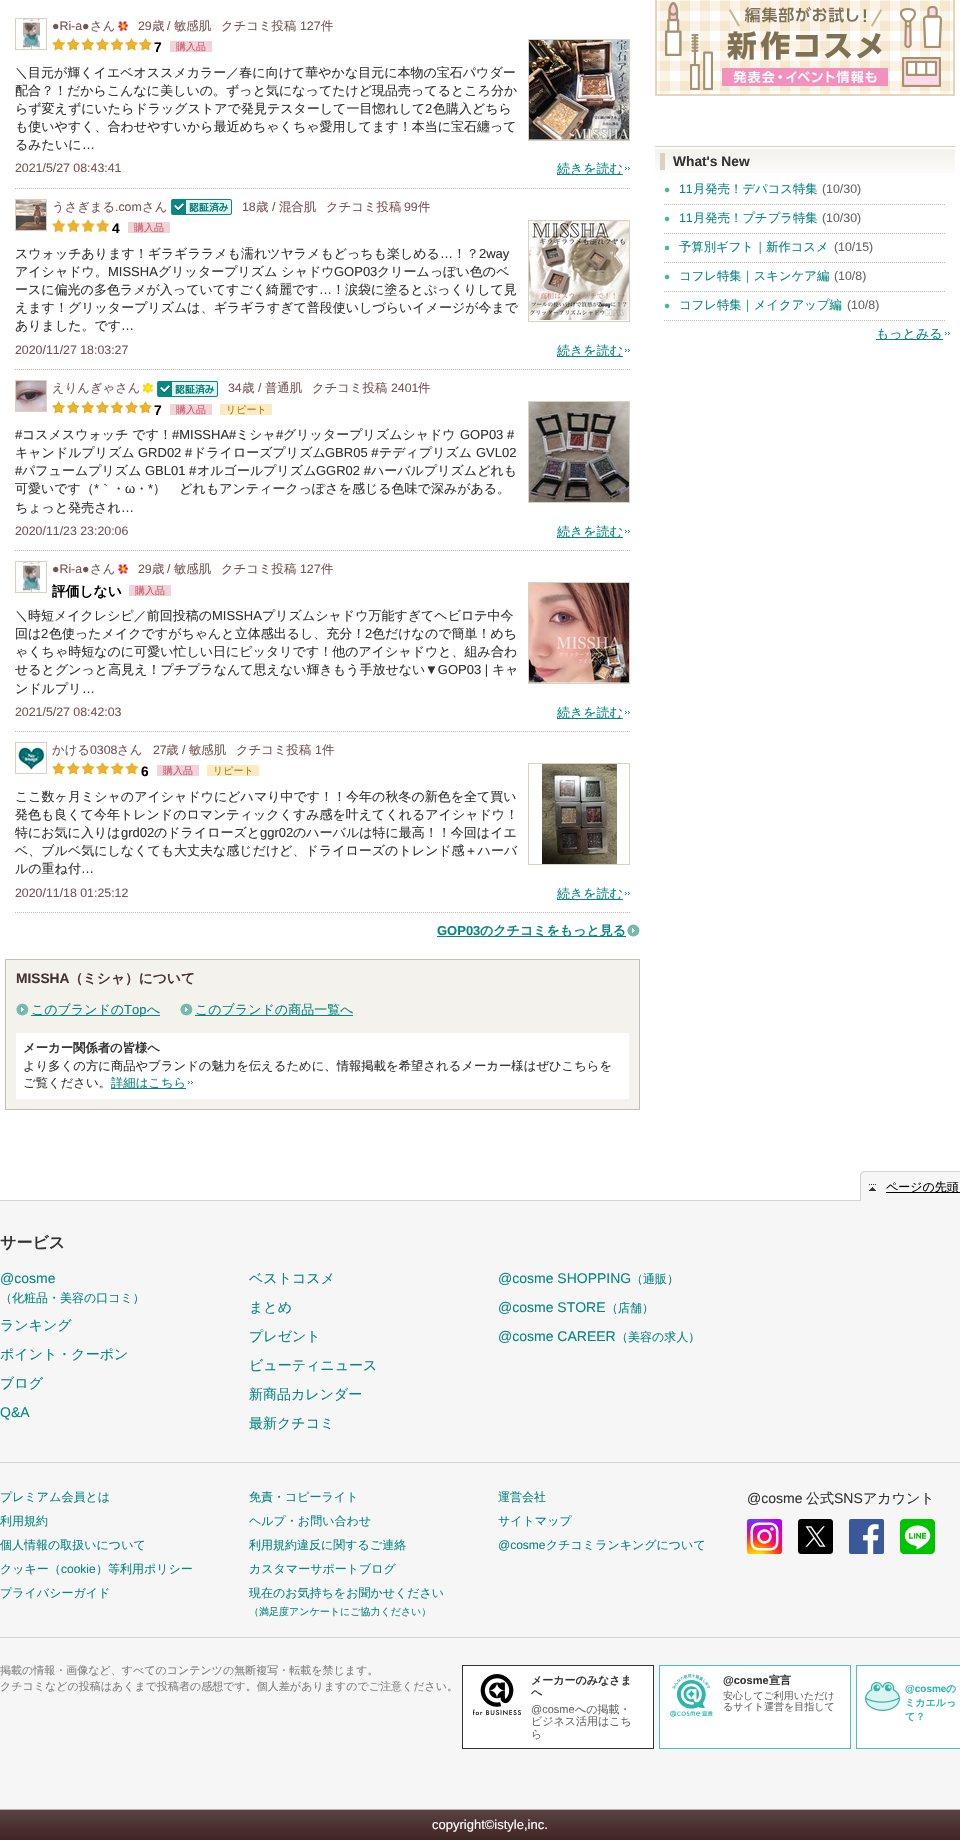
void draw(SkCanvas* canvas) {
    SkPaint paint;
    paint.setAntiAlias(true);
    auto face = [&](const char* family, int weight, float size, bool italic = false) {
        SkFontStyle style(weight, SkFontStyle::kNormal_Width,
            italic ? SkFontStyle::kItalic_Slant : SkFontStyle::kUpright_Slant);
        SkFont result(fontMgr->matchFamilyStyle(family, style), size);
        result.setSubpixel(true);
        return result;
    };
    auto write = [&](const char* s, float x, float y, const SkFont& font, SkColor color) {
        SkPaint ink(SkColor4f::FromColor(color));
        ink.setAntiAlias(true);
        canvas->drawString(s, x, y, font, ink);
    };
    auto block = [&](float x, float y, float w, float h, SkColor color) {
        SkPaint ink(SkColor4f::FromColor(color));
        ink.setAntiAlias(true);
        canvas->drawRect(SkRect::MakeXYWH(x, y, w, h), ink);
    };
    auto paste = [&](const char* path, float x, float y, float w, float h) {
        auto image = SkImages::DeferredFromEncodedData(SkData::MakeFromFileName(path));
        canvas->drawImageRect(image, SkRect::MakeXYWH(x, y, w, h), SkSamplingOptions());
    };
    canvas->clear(SK_ColorWHITE);
    paint.setStyle(SkPaint::kStroke_Style);
    paint.setStrokeWidth(1);
    paint.setColor(SkColorSetRGB(189, 184, 173));
    paint.setPathEffect(SkDashPathEffect::Make({{1, 1}}, 0));
    canvas->drawPath(SkPathBuilder().moveTo(15, 188.5f).lineTo(630, 188.5f).detach(), paint);
    paint.setPathEffect(nullptr);
    paint.setColor(SkColorSetRGB(217, 210, 195));
    canvas->drawRect(SkRect::MakeXYWH(15.5f, 18.5f, 31, 31), paint);
    paste("pic1.png", 23, 19, 17, 30);
    auto kFont1 = face("Liberation Sans", 400, 12.35f);
    write("●Ri-a●", 52, 30, kFont1, SkColorSetRGB(119, 85, 85));
    auto kFont2 = face("WenQuanYi Zen Hei", 500, 12.35f);
    write("さん", 90, 30, kFont2, SkColorSetRGB(119, 85, 85));
    paste("pic2.png", 118, 21, 10, 10);
    write("29", 138, 30, kFont1, SkColorSetRGB(119, 85, 85));
    write("歳", 152, 30, kFont2, SkColorSetRGB(119, 85, 85));
    write("/", 167, 30, kFont1, SkColorSetRGB(119, 85, 85));
    write("敏感肌", 174, 30, kFont2, SkColorSetRGB(119, 85, 85));
    write("クチコミ投稿", 221, 30, kFont2, SkColorSetRGB(119, 85, 85));
    write("127", 300, 30, kFont1, SkColorSetRGB(119, 85, 85));
    write("件", 321, 30, kFont2, SkColorSetRGB(119, 85, 85));
    paste("pic3.png", 52, 38, 100, 13);
    auto kFont3 = face("Liberation Sans", 700, 13.75f);
    write("7", 154, 52, kFont3, SK_ColorBLACK);
    block(170, 41, 42, 11, SkColorSetRGB(241, 212, 217));
    auto kFont4 = face("WenQuanYi Zen Hei", 500, 10);
    write("購入品", 176, 50, kFont4, SkColorSetRGB(202, 87, 108));
    auto kFont5 = face("WenQuanYi Zen Hei", 500, 13);
    write("＼目元が輝くイエベオススメカラー／春に向けて華やかな目元に本物の宝石パウダー", 15, 77, kFont5, SkColorSetRGB(51, 51, 51));
    write("配合？！だからこんなに美しいの。ずっと気になってたけど現品売ってるところ分か", 15, 95, kFont5, SkColorSetRGB(51, 51, 51));
    write("らず変えずにいたらドラッグストアで発見テスターして一目惚れして", 15, 113, kFont5, SkColorSetRGB(51, 51, 51));
    auto kFont6 = face("Liberation Sans", 400, 13);
    write("2", 425, 113, kFont6, SkColorSetRGB(51, 51, 51));
    write("色購入どちら", 433, 113, kFont5, SkColorSetRGB(51, 51, 51));
    write("も使いやすく、合わせやすいから最近めちゃくちゃ愛用してます！本当に宝石纏って", 15, 131, kFont5, SkColorSetRGB(51, 51, 51));
    write("るみたいに", 15, 149, kFont5, SkColorSetRGB(51, 51, 51));
    write("…", 82, 149, kFont6, SkColorSetRGB(51, 51, 51));
    canvas->drawRect(SkRect::MakeXYWH(528.5f, 39.5f, 101, 101), paint);
    paste("pic4.png", 529, 40, 100, 100);
    write("2021/5/27 08:43:41", 15, 172, kFont1, SkColorSetRGB(119, 85, 85));
    block(557, 174, 66, 1, SkColorSetRGB(6, 134, 129));
    write("続きを読む", 557, 173, kFont5, SkColorSetRGB(6, 134, 129));
    paste("pic5.png", 625, 167, 5, 3);
    paint.setColor(SkColorSetRGB(189, 184, 173));
    paint.setPathEffect(SkDashPathEffect::Make({{1, 1}}, 0));
    canvas->drawPath(SkPathBuilder().moveTo(15, 369.5f).lineTo(630, 369.5f).detach(), paint);
    paint.setPathEffect(nullptr);
    paint.setColor(SkColorSetRGB(217, 210, 195));
    canvas->drawRect(SkRect::MakeXYWH(15.5f, 199.5f, 31, 31), paint);
    paste("pic6.png", 16, 200, 30, 30);
    write("うさぎまる", 52, 211, kFont2, SkColorSetRGB(119, 85, 85));
    write(".com", 115, 211, kFont1, SkColorSetRGB(119, 85, 85));
    write("さん", 142, 211, kFont2, SkColorSetRGB(119, 85, 85));
    paste("pic7.png", 171, 199, 61, 16);
    write("18", 242, 211, kFont1, SkColorSetRGB(119, 85, 85));
    write("歳", 256, 211, kFont2, SkColorSetRGB(119, 85, 85));
    write("/", 272, 211, kFont1, SkColorSetRGB(119, 85, 85));
    write("混合肌", 279, 211, kFont2, SkColorSetRGB(119, 85, 85));
    write("クチコミ投稿", 326, 211, kFont2, SkColorSetRGB(119, 85, 85));
    write("99", 404, 211, kFont1, SkColorSetRGB(119, 85, 85));
    write("件", 418, 211, kFont2, SkColorSetRGB(119, 85, 85));
    paste("pic8.png", 52, 219, 58, 14);
    write("4", 112, 233, kFont3, SK_ColorBLACK);
    block(128, 222, 42, 11, SkColorSetRGB(241, 212, 217));
    write("購入品", 134, 231, kFont4, SkColorSetRGB(202, 87, 108));
    write("スウォッチあります！ギラギララメも濡れツヤラメもどっちも楽しめる", 15, 258, kFont5, SkColorSetRGB(51, 51, 51));
    write("…", 440, 258, kFont6, SkColorSetRGB(51, 51, 51));
    write("！？", 453, 258, kFont5, SkColorSetRGB(51, 51, 51));
    write("2way", 479, 258, kFont6, SkColorSetRGB(51, 51, 51));
    write("アイシャドウ。", 15, 276, kFont5, SkColorSetRGB(51, 51, 51));
    write("MISSHA", 108, 276, kFont6, SkColorSetRGB(51, 51, 51));
    write("グリッタープリズム シャドウ", 158, 276, kFont5, SkColorSetRGB(51, 51, 51));
    write("GOP03", 334, 276, kFont6, SkColorSetRGB(51, 51, 51));
    write("クリームっぽい色のベ", 377, 276, kFont5, SkColorSetRGB(51, 51, 51));
    write("ースに偏光の多色ラメが入っていてすごく綺麗です", 15, 294, kFont5, SkColorSetRGB(51, 51, 51));
    write("…", 319, 294, kFont6, SkColorSetRGB(51, 51, 51));
    write("！涙袋に塗るとぷっくりして見", 332, 294, kFont5, SkColorSetRGB(51, 51, 51));
    write("えます！グリッタープリズムは、ギラギラすぎて普段使いしづらいイメージが今まで", 15, 312, kFont5, SkColorSetRGB(51, 51, 51));
    write("ありました。です", 15, 330, kFont5, SkColorSetRGB(51, 51, 51));
    write("…", 121, 330, kFont6, SkColorSetRGB(51, 51, 51));
    canvas->drawRect(SkRect::MakeXYWH(528.5f, 220.5f, 101, 101), paint);
    paste("pic9.png", 529, 221, 100, 99);
    write("2020/11/27 18:03:27", 15, 354, kFont1, SkColorSetRGB(119, 85, 85));
    block(557, 356, 66, 1, SkColorSetRGB(6, 134, 129));
    write("続きを読む", 557, 355, kFont5, SkColorSetRGB(6, 134, 129));
    paste("pic5.png", 625, 349, 5, 3);
    paint.setColor(SkColorSetRGB(189, 184, 173));
    paint.setPathEffect(SkDashPathEffect::Make({{1, 1}}, 0));
    canvas->drawPath(SkPathBuilder().moveTo(15, 550.5f).lineTo(630, 550.5f).detach(), paint);
    paint.setPathEffect(nullptr);
    paint.setColor(SkColorSetRGB(217, 210, 195));
    canvas->drawRect(SkRect::MakeXYWH(15.5f, 380.5f, 31, 31), paint);
    paste("pic10.png", 16, 381, 30, 30);
    write("えりんぎゃさん", 52, 392, kFont2, SkColorSetRGB(119, 85, 85));
    paste("pic11.png", 143, 383, 10, 10);
    paste("pic7.png", 157, 381, 61, 16);
    write("34", 228, 392, kFont1, SkColorSetRGB(119, 85, 85));
    write("歳", 242, 392, kFont2, SkColorSetRGB(119, 85, 85));
    write("/", 258, 392, kFont1, SkColorSetRGB(119, 85, 85));
    write("普通肌", 265, 392, kFont2, SkColorSetRGB(119, 85, 85));
    write("クチコミ投稿", 312, 392, kFont2, SkColorSetRGB(119, 85, 85));
    write("2401", 391, 392, kFont1, SkColorSetRGB(119, 85, 85));
    write("件", 418, 392, kFont2, SkColorSetRGB(119, 85, 85));
    paste("pic3.png", 52, 401, 100, 13);
    write("7", 154, 415, kFont3, SK_ColorBLACK);
    block(170, 404, 42, 11, SkColorSetRGB(241, 212, 217));
    write("購入品", 176, 413, kFont4, SkColorSetRGB(202, 87, 108));
    block(220, 404, 52, 11, SkColorSetRGB(252, 235, 193));
    write("リピート", 226, 413, kFont4, SkColorSetRGB(169, 123, 13));
    write("#", 15, 439, kFont6, SkColorSetRGB(51, 51, 51));
    write("コスメスウォッチ です！", 22, 439, kFont5, SkColorSetRGB(51, 51, 51));
    write("#MISSHA#", 172, 439, kFont6, SkColorSetRGB(51, 51, 51));
    write("ミシャ", 236, 439, kFont5, SkColorSetRGB(51, 51, 51));
    write("#", 276, 439, kFont6, SkColorSetRGB(51, 51, 51));
    write("グリッタープリズムシャドウ", 283, 439, kFont5, SkColorSetRGB(51, 51, 51));
    write("GOP03 #", 460, 439, kFont6, SkColorSetRGB(51, 51, 51));
    write("キャンドルプリズム", 15, 457, kFont5, SkColorSetRGB(51, 51, 51));
    write("GRD02 #", 138, 457, kFont6, SkColorSetRGB(51, 51, 51));
    write("ドライローズプリズム", 193, 457, kFont5, SkColorSetRGB(51, 51, 51));
    write("GBR05 #", 325, 457, kFont6, SkColorSetRGB(51, 51, 51));
    write("テディプリズム", 379, 457, kFont5, SkColorSetRGB(51, 51, 51));
    write("GVL02", 476, 457, kFont6, SkColorSetRGB(51, 51, 51));
    write("#", 15, 475, kFont6, SkColorSetRGB(51, 51, 51));
    write("パフュームプリズム", 22, 475, kFont5, SkColorSetRGB(51, 51, 51));
    write("GBL01 #", 145, 475, kFont6, SkColorSetRGB(51, 51, 51));
    write("オルゴールプリズム", 197, 475, kFont5, SkColorSetRGB(51, 51, 51));
    write("GGR02 #", 316, 475, kFont6, SkColorSetRGB(51, 51, 51));
    write("ハーバルプリズムどれも", 371, 475, kFont5, SkColorSetRGB(51, 51, 51));
    write("可愛いです（", 15, 493, kFont5, SkColorSetRGB(51, 51, 51));
    write("*", 94, 493, kFont6, SkColorSetRGB(51, 51, 51));
    write("｀・", 99, 493, kFont5, SkColorSetRGB(51, 51, 51));
    write("ω", 125, 493, kFont6, SkColorSetRGB(51, 51, 51));
    write("・", 135, 493, kFont5, SkColorSetRGB(51, 51, 51));
    write("*", 148, 493, kFont6, SkColorSetRGB(51, 51, 51));
    write("）ゞどれもアンティークっぽさを感じる色味で深みがある。", 153, 493, kFont5, SkColorSetRGB(51, 51, 51));
    write("ちょっと発売され", 15, 512, kFont5, SkColorSetRGB(51, 51, 51));
    write("…", 121, 512, kFont6, SkColorSetRGB(51, 51, 51));
    canvas->drawRect(SkRect::MakeXYWH(528.5f, 401.5f, 101, 101), paint);
    paste("pic12.png", 529, 402, 100, 100);
    write("2020/11/23 23:20:06", 15, 535, kFont1, SkColorSetRGB(119, 85, 85));
    block(557, 537, 66, 1, SkColorSetRGB(6, 134, 129));
    write("続きを読む", 557, 536, kFont5, SkColorSetRGB(6, 134, 129));
    paste("pic5.png", 625, 530, 5, 3);
    paint.setColor(SkColorSetRGB(189, 184, 173));
    paint.setPathEffect(SkDashPathEffect::Make({{1, 1}}, 0));
    canvas->drawPath(SkPathBuilder().moveTo(15, 731.5f).lineTo(630, 731.5f).detach(), paint);
    paint.setPathEffect(nullptr);
    paint.setColor(SkColorSetRGB(217, 210, 195));
    canvas->drawRect(SkRect::MakeXYWH(15.5f, 561.5f, 31, 31), paint);
    paste("pic1.png", 23, 562, 17, 30);
    write("●Ri-a●", 52, 573, kFont1, SkColorSetRGB(119, 85, 85));
    write("さん", 90, 573, kFont2, SkColorSetRGB(119, 85, 85));
    paste("pic2.png", 118, 564, 10, 10);
    write("29", 138, 573, kFont1, SkColorSetRGB(119, 85, 85));
    write("歳", 152, 573, kFont2, SkColorSetRGB(119, 85, 85));
    write("/", 167, 573, kFont1, SkColorSetRGB(119, 85, 85));
    write("敏感肌", 174, 573, kFont2, SkColorSetRGB(119, 85, 85));
    write("クチコミ投稿", 221, 573, kFont2, SkColorSetRGB(119, 85, 85));
    write("127", 300, 573, kFont1, SkColorSetRGB(119, 85, 85));
    write("件", 321, 573, kFont2, SkColorSetRGB(119, 85, 85));
    auto kFont7 = face("WenQuanYi Zen Hei", 700, 13.75f);
    write("評価しない", 52, 596, kFont7, SK_ColorBLACK);
    block(129, 585, 42, 11, SkColorSetRGB(241, 212, 217));
    write("購入品", 135, 594, kFont4, SkColorSetRGB(202, 87, 108));
    write("＼時短メイクレシピ／前回投稿の", 15, 620, kFont5, SkColorSetRGB(51, 51, 51));
    write("MISSHA", 212, 620, kFont6, SkColorSetRGB(51, 51, 51));
    write("プリズムシャドウ万能すぎてヘビロテ中今", 262, 620, kFont5, SkColorSetRGB(51, 51, 51));
    write("回は", 15, 638, kFont5, SkColorSetRGB(51, 51, 51));
    write("2", 41, 638, kFont6, SkColorSetRGB(51, 51, 51));
    write("色使ったメイクですがちゃんと立体感出るし、充分！", 49, 638, kFont5, SkColorSetRGB(51, 51, 51));
    write("2", 365, 638, kFont6, SkColorSetRGB(51, 51, 51));
    write("色だけなので簡単！めち", 372, 638, kFont5, SkColorSetRGB(51, 51, 51));
    write("ゃくちゃ時短なのに可愛い忙しい日にピッタリです！他のアイシャドウと、組み合わ", 15, 656, kFont5, SkColorSetRGB(51, 51, 51));
    write("せるとグンっと高見え！プチプラなんて思えない輝きもう手放せない", 15, 674, kFont5, SkColorSetRGB(51, 51, 51));
    write("▼GOP03 |", 425, 674, kFont6, SkColorSetRGB(51, 51, 51));
    write("キャ", 492, 674, kFont5, SkColorSetRGB(51, 51, 51));
    write("ンドルプリ", 15, 693, kFont5, SkColorSetRGB(51, 51, 51));
    write("…", 82, 693, kFont6, SkColorSetRGB(51, 51, 51));
    canvas->drawRect(SkRect::MakeXYWH(528.5f, 582.5f, 101, 101), paint);
    paste("pic13.png", 529, 583, 100, 100);
    write("2021/5/27 08:42:03", 15, 716, kFont1, SkColorSetRGB(119, 85, 85));
    block(557, 718, 66, 1, SkColorSetRGB(6, 134, 129));
    write("続きを読む", 557, 717, kFont5, SkColorSetRGB(6, 134, 129));
    paste("pic5.png", 625, 711, 5, 3);
    paint.setColor(SkColorSetRGB(189, 184, 173));
    paint.setPathEffect(SkDashPathEffect::Make({{1, 1}}, 0));
    canvas->drawPath(SkPathBuilder().moveTo(15, 912.5f).lineTo(630, 912.5f).detach(), paint);
    paint.setPathEffect(nullptr);
    paint.setColor(SkColorSetRGB(217, 210, 195));
    canvas->drawRect(SkRect::MakeXYWH(15.5f, 742.5f, 31, 31), paint);
    paste("pic14.png", 18, 747, 27, 23);
    write("かける", 52, 754, kFont2, SkColorSetRGB(119, 85, 85));
    write("0308", 90, 754, kFont1, SkColorSetRGB(119, 85, 85));
    write("さん", 117, 754, kFont2, SkColorSetRGB(119, 85, 85));
    write("27", 153, 754, kFont1, SkColorSetRGB(119, 85, 85));
    write("歳", 166, 754, kFont2, SkColorSetRGB(119, 85, 85));
    write("/", 182, 754, kFont1, SkColorSetRGB(119, 85, 85));
    write("敏感肌", 189, 754, kFont2, SkColorSetRGB(119, 85, 85));
    write("クチコミ投稿", 236, 754, kFont2, SkColorSetRGB(119, 85, 85));
    write("1", 315, 754, kFont1, SkColorSetRGB(119, 85, 85));
    write("件", 322, 754, kFont2, SkColorSetRGB(119, 85, 85));
    paste("pic15.png", 52, 762, 87, 13);
    write("6", 141, 776, kFont3, SK_ColorBLACK);
    block(157, 765, 42, 11, SkColorSetRGB(241, 212, 217));
    write("購入品", 163, 774, kFont4, SkColorSetRGB(202, 87, 108));
    block(207, 765, 52, 11, SkColorSetRGB(252, 235, 193));
    write("リピート", 213, 774, kFont4, SkColorSetRGB(169, 123, 13));
    write("ここ数ヶ月ミシャのアイシャドウにどハマり中です！！今年の秋冬の新色を全て買い", 15, 801, kFont5, SkColorSetRGB(51, 51, 51));
    write("発色も良くて今年トレンドのロマンティックくすみ感を叶えてくれるアイシャドウ！", 15, 819, kFont5, SkColorSetRGB(51, 51, 51));
    write("特にお気に入りは", 15, 837, kFont5, SkColorSetRGB(51, 51, 51));
    write("grd02", 121, 837, kFont6, SkColorSetRGB(51, 51, 51));
    write("のドライローズと", 154, 837, kFont5, SkColorSetRGB(51, 51, 51));
    write("ggr02", 260, 837, kFont6, SkColorSetRGB(51, 51, 51));
    write("のハーバルは特に最高！！今回はイエ", 293, 837, kFont5, SkColorSetRGB(51, 51, 51));
    write("ベ、ブルベ気にしなくても大丈夫な感じだけど、ドライローズのトレンド感＋ハーバ", 15, 855, kFont5, SkColorSetRGB(51, 51, 51));
    write("ルの重ね付", 15, 873, kFont5, SkColorSetRGB(51, 51, 51));
    write("…", 81, 873, kFont6, SkColorSetRGB(51, 51, 51));
    canvas->drawRect(SkRect::MakeXYWH(528.5f, 763.5f, 101, 101), paint);
    paste("pic16.png", 542, 764, 75, 100);
    write("2020/11/18 01:25:12", 15, 897, kFont1, SkColorSetRGB(119, 85, 85));
    block(557, 899, 66, 1, SkColorSetRGB(6, 134, 129));
    write("続きを読む", 557, 898, kFont5, SkColorSetRGB(6, 134, 129));
    paste("pic5.png", 625, 892, 5, 3);
    paste("pic17.png", 627, 924, 13, 13);
    auto kFont8 = face("Liberation Sans", 700, 13);
    write("GOP03", 437, 935, kFont8, SkColorSetRGB(6, 134, 129));
    block(437, 936, 189, 1, SkColorSetRGB(6, 134, 129));
    auto kFont9 = face("WenQuanYi Zen Hei", 700, 13);
    write("のクチコミをもっと見る", 480, 935, kFont9, SkColorSetRGB(6, 134, 129));
    paint.setStyle(SkPaint::kFill_Style);
    paint.setColor(SkColorSetRGB(244, 242, 236));
    canvas->drawRect(SkRect::MakeXYWH(5.5f, 959.5f, 634, 150), paint);
    paint.setStyle(SkPaint::kStroke_Style);
    paint.setColor(SkColorSetRGB(194, 190, 179));
    canvas->drawRect(SkRect::MakeXYWH(5.5f, 959.5f, 634, 150), paint);
    write("MISSHA", 16, 983, kFont3, SkColorSetRGB(68, 51, 51));
    write("（ミシャ）について", 69, 983, kFont7, SkColorSetRGB(68, 51, 51));
    paste("pic18.png", 16, 1003, 13, 13);
    block(31, 1015, 129, 1, SkColorSetRGB(6, 134, 129));
    write("このブランドの", 31, 1014, kFont5, SkColorSetRGB(6, 134, 129));
    write("Top", 124, 1014, kFont6, SkColorSetRGB(6, 134, 129));
    write("へ", 147, 1014, kFont5, SkColorSetRGB(6, 134, 129));
    paste("pic18.png", 180, 1003, 13, 13);
    block(195, 1015, 158, 1, SkColorSetRGB(6, 134, 129));
    write("このブランドの商品一覧へ", 195, 1014, kFont5, SkColorSetRGB(6, 134, 129));
    block(16, 1033, 613, 66, SK_ColorWHITE);
    auto kFont10 = face("WenQuanYi Zen Hei", 700, 12.35f);
    write("メーカー関係者の皆様へ", 23, 1052, kFont10, SkColorSetRGB(51, 51, 51));
    write("より多くの方に商品やブランドの魅力を伝えるために、情報掲載を希望されるメーカー様はぜひこちらを", 23, 1070, kFont2, SkColorSetRGB(51, 51, 51));
    write("ご覧ください。", 23, 1087, kFont2, SkColorSetRGB(51, 51, 51));
    block(111, 1088, 75, 1, SkColorSetRGB(6, 134, 129));
    write("詳細はこちら", 111, 1087, kFont2, SkColorSetRGB(6, 134, 129));
    paste("pic5.png", 188, 1081, 5, 3);
    paste("pic19.png", 655, 0, 300, 96);
    paste("pic20.png", 655, 146, 300, 27);
    write("What's New", 673, 166, kFont3, SkColorSetRGB(51, 51, 51));
    paste("pic21.png", 664, 187, 6, 6);
    paint.setColor(SkColorSetRGB(191, 183, 172));
    paint.setPathEffect(SkDashPathEffect::Make({{1, 1}}, 0));
    canvas->drawPath(SkPathBuilder().moveTo(664, 204.5f).lineTo(946, 204.5f).detach(), paint);
    paint.setPathEffect(nullptr);
    write("11", 679, 193, kFont1, SkColorSetRGB(6, 134, 129));
    write("月発売！デパコス特集", 693, 193, kFont2, SkColorSetRGB(6, 134, 129));
    write("(10/30)", 822, 193, kFont1, SkColorSetRGB(102, 102, 102));
    paste("pic21.png", 664, 216, 6, 6);
    paint.setPathEffect(SkDashPathEffect::Make({{1, 1}}, 0));
    canvas->drawPath(SkPathBuilder().moveTo(664, 233.5f).lineTo(946, 233.5f).detach(), paint);
    paint.setPathEffect(nullptr);
    write("11", 679, 222, kFont1, SkColorSetRGB(6, 134, 129));
    write("月発売！プチプラ特集", 693, 222, kFont2, SkColorSetRGB(6, 134, 129));
    write("(10/30)", 822, 222, kFont1, SkColorSetRGB(102, 102, 102));
    paste("pic21.png", 664, 245, 6, 6);
    paint.setPathEffect(SkDashPathEffect::Make({{1, 1}}, 0));
    canvas->drawPath(SkPathBuilder().moveTo(664, 262.5f).lineTo(946, 262.5f).detach(), paint);
    paint.setPathEffect(nullptr);
    write("予算別ギフト｜新作コスメ", 679, 251, kFont2, SkColorSetRGB(6, 134, 129));
    write("(10/15)", 834, 251, kFont1, SkColorSetRGB(102, 102, 102));
    paste("pic21.png", 664, 274, 6, 6);
    paint.setPathEffect(SkDashPathEffect::Make({{1, 1}}, 0));
    canvas->drawPath(SkPathBuilder().moveTo(664, 291.5f).lineTo(946, 291.5f).detach(), paint);
    paint.setPathEffect(nullptr);
    write("コフレ特集｜スキンケア編", 679, 280, kFont2, SkColorSetRGB(6, 134, 129));
    write("(10/8)", 834, 280, kFont1, SkColorSetRGB(102, 102, 102));
    paste("pic21.png", 664, 303, 6, 6);
    paint.setPathEffect(SkDashPathEffect::Make({{1, 1}}, 0));
    canvas->drawPath(SkPathBuilder().moveTo(664, 320.5f).lineTo(946, 320.5f).detach(), paint);
    paint.setPathEffect(nullptr);
    write("コフレ特集｜メイクアップ編", 679, 309, kFont2, SkColorSetRGB(6, 134, 129));
    write("(10/8)", 847, 309, kFont1, SkColorSetRGB(102, 102, 102));
    block(876, 339, 67, 1, SkColorSetRGB(6, 134, 129));
    write("もっとみる", 876, 338, kFont5, SkColorSetRGB(6, 134, 129));
    paste("pic5.png", 945, 332, 5, 3);
    block(0, 1201, 960, 608, SkColorSetRGB(246, 246, 246));
    block(0, 1200, 860, 1, SkColorSetRGB(211, 211, 211));
    paint.setStyle(SkPaint::kFill_Style);
    paint.setColor(SkColorSetRGB(246, 246, 246));
    canvas->drawPath(SkPathBuilder().moveTo(865, 1171).lineTo(960, 1171).cubicTo(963, 1171, 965, 1173, 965, 1176).lineTo(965, 1201).lineTo(860, 1201).lineTo(860, 1176).cubicTo(860, 1173, 862, 1171, 865, 1171).close().detach(), paint);
    paint.setColor(SkColorSetRGB(211, 211, 211));
    canvas->drawPath(SkPathBuilder(SkPathFillType::kEvenOdd).moveTo(865, 1171).lineTo(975, 1171).cubicTo(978, 1171, 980, 1173, 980, 1176).lineTo(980, 1201).lineTo(860, 1201).lineTo(860, 1176).cubicTo(860, 1173, 862, 1171, 865, 1171).close().moveTo(865, 1172).lineTo(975, 1172).cubicTo(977, 1172, 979, 1174, 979, 1176).lineTo(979, 1201).lineTo(861, 1201).lineTo(861, 1176).cubicTo(861, 1174, 863, 1172, 865, 1172).close().detach(), paint);
    paste("pic22.png", 869, 1184, 7, 7);
    block(886, 1192, 74, 1, SK_ColorBLACK);
    auto kFont11 = face("WenQuanYi Zen Hei", 500, 12);
    write("ページの先頭", 886, 1191, kFont11, SK_ColorBLACK);
    auto kFont12 = face("WenQuanYi Zen Hei", 700, 16);
    write("サービス", 0, 1248, kFont12, SkColorSetRGB(51, 51, 51));
    auto kFont13 = face("Liberation Sans", 400, 14);
    write("@cosme", 0, 1283, kFont13, SkColorSetRGB(6, 134, 129));
    write("（化粧品・美容の口コミ）", 0, 1302, kFont11, SkColorSetRGB(6, 134, 129));
    auto kFont14 = face("WenQuanYi Zen Hei", 500, 14);
    write("ランキング", 0, 1330, kFont14, SkColorSetRGB(6, 134, 129));
    write("ポイント・クーポン", 0, 1359, kFont14, SkColorSetRGB(6, 134, 129));
    write("ブログ", 0, 1388, kFont14, SkColorSetRGB(6, 134, 129));
    write("Q&A", 0, 1417, kFont13, SkColorSetRGB(6, 134, 129));
    write("ベストコスメ", 249, 1283, kFont14, SkColorSetRGB(6, 134, 129));
    write("まとめ", 249, 1312, kFont14, SkColorSetRGB(6, 134, 129));
    write("プレゼント", 249, 1341, kFont14, SkColorSetRGB(6, 134, 129));
    write("ビューティニュース", 249, 1370, kFont14, SkColorSetRGB(6, 134, 129));
    write("新商品カレンダー", 249, 1399, kFont14, SkColorSetRGB(6, 134, 129));
    write("最新クチコミ", 249, 1428, kFont14, SkColorSetRGB(6, 134, 129));
    write("@cosme SHOPPING", 498, 1283, kFont13, SkColorSetRGB(6, 134, 129));
    write("（通販）", 631, 1283, kFont11, SkColorSetRGB(6, 134, 129));
    write("@cosme STORE", 498, 1312, kFont13, SkColorSetRGB(6, 134, 129));
    write("（店舗）", 606, 1312, kFont11, SkColorSetRGB(6, 134, 129));
    write("@cosme CAREER", 498, 1341, kFont13, SkColorSetRGB(6, 134, 129));
    write("（美容の求人）", 616, 1341, kFont11, SkColorSetRGB(6, 134, 129));
    block(0, 1462, 960, 1, SkColorSetRGB(211, 211, 211));
    write("プレミアム会員とは", 0, 1501, kFont11, SkColorSetRGB(6, 134, 129));
    write("利用規約", 0, 1525, kFont11, SkColorSetRGB(6, 134, 129));
    write("個人情報の取扱いについて", 0, 1549, kFont11, SkColorSetRGB(6, 134, 129));
    write("クッキー（", 0, 1573, kFont11, SkColorSetRGB(6, 134, 129));
    auto kFont15 = face("Liberation Sans", 400, 12);
    write("cookie", 61, 1573, kFont15, SkColorSetRGB(6, 134, 129));
    write("）等利用ポリシー", 96, 1573, kFont11, SkColorSetRGB(6, 134, 129));
    write("プライバシーガイド", 0, 1597, kFont11, SkColorSetRGB(6, 134, 129));
    write("免責・コピーライト", 249, 1501, kFont11, SkColorSetRGB(6, 134, 129));
    write("ヘルプ・お問い合わせ", 249, 1525, kFont11, SkColorSetRGB(6, 134, 129));
    write("利用規約違反に関するご連絡", 249, 1549, kFont11, SkColorSetRGB(6, 134, 129));
    write("カスタマーサポートブログ", 249, 1573, kFont11, SkColorSetRGB(6, 134, 129));
    write("現在のお気持ちをお聞かせください", 249, 1597, kFont11, SkColorSetRGB(6, 134, 129));
    write("（満足度アンケートにご協力ください）", 249, 1615, kFont4, SkColorSetRGB(6, 134, 129));
    write("運営会社", 498, 1501, kFont11, SkColorSetRGB(6, 134, 129));
    write("サイトマップ", 498, 1525, kFont11, SkColorSetRGB(6, 134, 129));
    write("@cosme", 498, 1549, kFont15, SkColorSetRGB(6, 134, 129));
    write("クチコミランキングについて", 546, 1549, kFont11, SkColorSetRGB(6, 134, 129));
    write("@cosme", 747, 1503, kFont13, SkColorSetRGB(51, 51, 51));
    write("公式", 806, 1503, kFont14, SkColorSetRGB(51, 51, 51));
    write("SNS", 834, 1503, kFont13, SkColorSetRGB(51, 51, 51));
    write("アカウント", 863, 1503, kFont14, SkColorSetRGB(51, 51, 51));
    paste("pic23.png", 747, 1519, 35, 35);
    paste("pic24.png", 798, 1519, 35, 35);
    paste("pic25.png", 849, 1519, 35, 35);
    paste("pic26.png", 900, 1519, 35, 35);
    block(0, 1637, 960, 1, SkColorSetRGB(211, 211, 211));
    auto kFont16 = face("WenQuanYi Zen Hei", 500, 11);
    write("掲載の情報・画像など、すべてのコンテンツの無断複写・転載を禁じます。", 0, 1674, kFont16, SkColorSetRGB(128, 128, 128));
    write("クチコミなどの投稿はあくまで投稿者の感想です。個人差がありますのでご注意ください。", 0, 1690, kFont16, SkColorSetRGB(128, 128, 128));
    paint.setColor(SK_ColorWHITE);
    canvas->drawRect(SkRect::MakeXYWH(462.5f, 1665.5f, 191, 83), paint);
    paint.setStyle(SkPaint::kStroke_Style);
    paint.setColor(SkColorSetRGB(51, 51, 51));
    canvas->drawRect(SkRect::MakeXYWH(462.5f, 1665.5f, 191, 83), paint);
    paste("pic27.png", 473, 1674, 48, 41);
    auto kFont17 = face("WenQuanYi Zen Hei", 700, 11);
    write("メーカーのみなさま", 531, 1684, kFont17, SkColorSetRGB(51, 51, 51));
    write("へ", 531, 1696, kFont17, SkColorSetRGB(51, 51, 51));
    auto kFont18 = face("Liberation Sans", 400, 11);
    write("@cosme", 531, 1713, kFont18, SkColorSetRGB(102, 102, 102));
    write("への掲載・", 575, 1713, kFont16, SkColorSetRGB(102, 102, 102));
    write("ビジネス活用はこち", 531, 1725, kFont16, SkColorSetRGB(102, 102, 102));
    write("ら", 531, 1738, kFont16, SkColorSetRGB(102, 102, 102));
    paint.setStyle(SkPaint::kFill_Style);
    paint.setColor(SK_ColorWHITE);
    canvas->drawRect(SkRect::MakeXYWH(659.5f, 1665.5f, 191, 83), paint);
    paint.setStyle(SkPaint::kStroke_Style);
    paint.setColor(SkColorSetRGB(77, 193, 183));
    canvas->drawRect(SkRect::MakeXYWH(659.5f, 1665.5f, 191, 83), paint);
    paste("pic28.png", 670, 1674, 43, 43);
    auto kFont19 = face("Liberation Sans", 700, 11);
    write("@cosme", 723, 1684, kFont19, SkColorSetRGB(51, 51, 51));
    write("宣言", 769, 1684, kFont17, SkColorSetRGB(51, 51, 51));
    write("安心してご利用いただけ", 723, 1699, kFont4, SkColorSetRGB(102, 102, 102));
    write("るサイト運営を目指して", 723, 1710, kFont4, SkColorSetRGB(102, 102, 102));
    paint.setStyle(SkPaint::kFill_Style);
    paint.setColor(SK_ColorWHITE);
    canvas->drawRect(SkRect::MakeXYWH(856.5f, 1665.5f, 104, 83), paint);
    paint.setStyle(SkPaint::kStroke_Style);
    paint.setColor(SkColorSetRGB(77, 193, 183));
    canvas->drawRect(SkRect::MakeXYWH(856.5f, 1665.5f, 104, 83), paint);
    paste("pic29.png", 865, 1682, 35, 29);
    auto kFont20 = face("Liberation Sans", 700, 10);
    write("@cosme", 905, 1692, kFont20, SkColorSetRGB(46, 182, 170));
    auto kFont21 = face("WenQuanYi Zen Hei", 700, 10);
    write("の", 946, 1692, kFont21, SkColorSetRGB(46, 182, 170));
    write("ミカエルっ", 905, 1706, kFont21, SkColorSetRGB(46, 182, 170));
    write("て？", 905, 1720, kFont21, SkColorSetRGB(46, 182, 170));
    paint.setStyle(SkPaint::kFill_Style);
    {
        const SkColor colors[] = {SkColorSetRGB(90, 67, 67), SkColorSetRGB(63, 36, 35)};
        const float stops[] = {0, 1};
        const SkPoint ends[] = {{490, 1810}, {490, 1840}};
        paint.setShader(SkGradientShader::MakeLinear(ends, colors, stops, 2, SkTileMode::kClamp));
        paint.setAlpha(255);
    }
    canvas->drawRect(SkRect::MakeXYWH(0, 1810, 960, 30), paint);
    block(0, 1809, 960, 1, SkColorSetRGB(183, 174, 174));
    write("copyright©istyle,inc.", 432, 1829, kFont6, SK_ColorWHITE);
}
